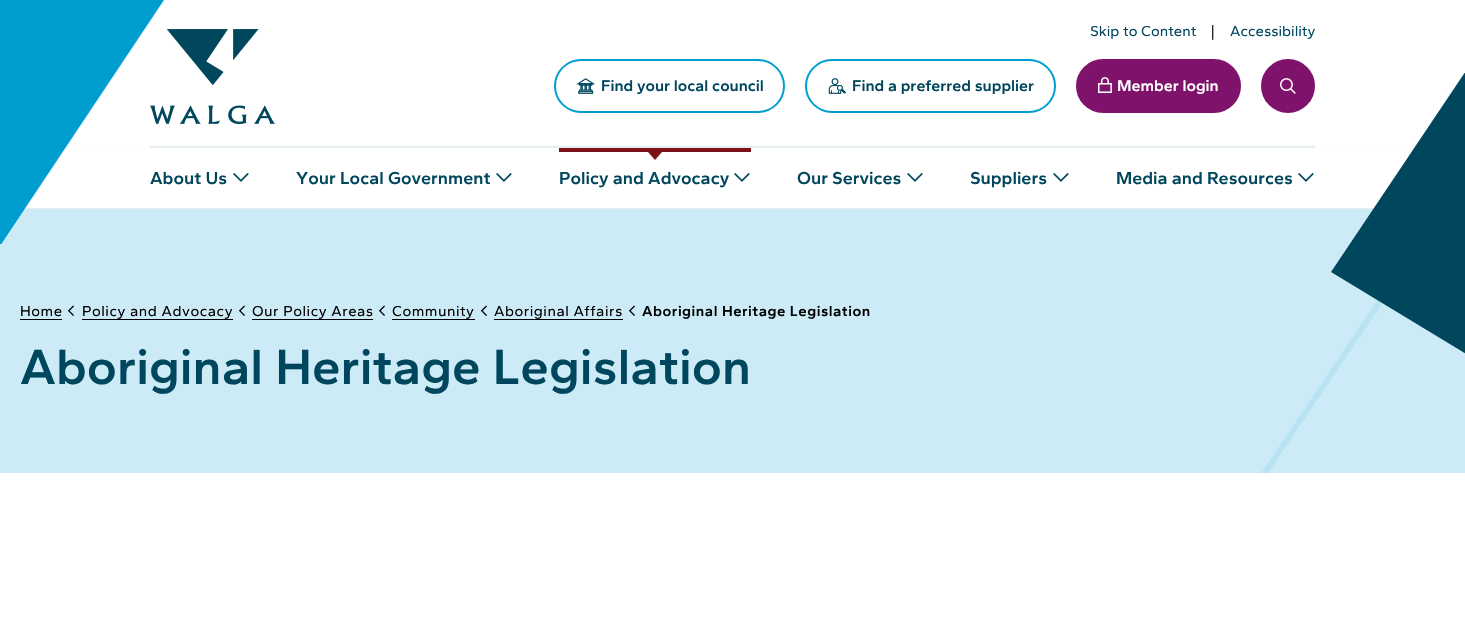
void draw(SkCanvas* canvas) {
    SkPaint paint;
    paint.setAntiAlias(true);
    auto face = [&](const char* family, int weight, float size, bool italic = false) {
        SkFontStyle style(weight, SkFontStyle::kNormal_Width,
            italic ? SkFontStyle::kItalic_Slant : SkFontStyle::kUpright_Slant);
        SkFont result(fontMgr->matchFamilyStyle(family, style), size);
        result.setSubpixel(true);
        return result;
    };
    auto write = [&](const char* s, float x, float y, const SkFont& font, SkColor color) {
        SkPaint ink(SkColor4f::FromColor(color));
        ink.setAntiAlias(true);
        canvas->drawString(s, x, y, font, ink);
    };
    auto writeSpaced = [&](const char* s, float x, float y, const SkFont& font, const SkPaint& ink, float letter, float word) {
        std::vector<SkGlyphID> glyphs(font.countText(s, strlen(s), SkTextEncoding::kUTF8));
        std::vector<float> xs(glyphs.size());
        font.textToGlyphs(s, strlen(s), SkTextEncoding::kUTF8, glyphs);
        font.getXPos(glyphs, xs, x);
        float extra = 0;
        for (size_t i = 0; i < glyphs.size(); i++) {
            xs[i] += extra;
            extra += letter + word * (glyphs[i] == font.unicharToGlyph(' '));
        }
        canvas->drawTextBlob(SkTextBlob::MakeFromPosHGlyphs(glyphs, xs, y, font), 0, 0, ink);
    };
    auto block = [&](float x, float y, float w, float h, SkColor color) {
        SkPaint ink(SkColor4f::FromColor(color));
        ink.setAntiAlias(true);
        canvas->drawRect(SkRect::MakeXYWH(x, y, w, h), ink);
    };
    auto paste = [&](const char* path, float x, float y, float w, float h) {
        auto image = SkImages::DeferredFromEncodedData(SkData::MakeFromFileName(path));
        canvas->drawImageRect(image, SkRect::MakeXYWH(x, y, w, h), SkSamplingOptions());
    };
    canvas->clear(SK_ColorWHITE);
    paste("pic1.png", 150, 29, 125, 95);
    block(66, 145, 1351, 1, SkColorSetRGB(250, 251, 252));
    block(24, 208, 1350, 1, SkColorSetRGB(230, 237, 239));
    block(150, 146, 1165, 2, SkColorSetRGB(230, 237, 239));
    auto kFont1 = face("Gantari", 600, 17.9f);
    write("About Us", 150, 184, kFont1, SkColorSetRGB(0, 70, 93));
    block(0, 209, 1465, 264, SkColorSetRGB(204, 235, 246));
    canvas->save();
    canvas->clipRect(SkRect::MakeXYWH(0, 0, 164, 244));
    paint.setColor(SkColorSetRGB(0, 157, 209));
    canvas->drawPath(SkPathBuilder().moveTo(0, 0).lineTo(0, 246).lineTo(164, 0).close().detach(), paint);
    canvas->restore();
    auto kFont2 = face("Gantari", 400, 14.9f);
    write("Skip to Content", 1090, 36, kFont2, SkColorSetRGB(0, 70, 93));
    write("|", 1211, 36, kFont2, SK_ColorBLACK);
    write("Accessibility", 1230, 36, kFont2, SkColorSetRGB(0, 70, 93));
    paint.setStyle(SkPaint::kStroke_Style);
    paint.setStrokeWidth(2);
    canvas->drawRoundRect(SkRect::MakeXYWH(555, 60, 229, 52), 26, 26, paint);
    paste("pic2.png", 576, 78, 19, 16);
    auto kFont3 = face("Gantari", 600, 16);
    write("Find your local council", 601, 91, kFont3, SkColorSetRGB(0, 70, 93));
    canvas->drawRoundRect(SkRect::MakeXYWH(806, 60, 249, 52), 26, 26, paint);
    paste("pic3.png", 828, 78, 18, 16);
    write("Find a preferred supplier", 852, 91, kFont3, SkColorSetRGB(0, 70, 93));
    paint.setStyle(SkPaint::kFill_Style);
    paint.setColor(SkColorSetRGB(127, 19, 108));
    canvas->drawRoundRect(SkRect::MakeXYWH(1077, 60, 163, 52), 26, 26, paint);
    paint.setStyle(SkPaint::kStroke_Style);
    canvas->drawRoundRect(SkRect::MakeXYWH(1077, 60, 163, 52), 26, 26, paint);
    paste("pic4.png", 1098, 77, 14, 16);
    write("Member login", 1117, 91, kFont3, SK_ColorWHITE);
    paint.setStyle(SkPaint::kFill_Style);
    canvas->drawCircle(1288, 86, 26, paint);
    paint.setStyle(SkPaint::kStroke_Style);
    canvas->drawCircle(1288, 86, 26, paint);
    paste("pic5.png", 1280, 78, 16, 16);
    paste("pic6.png", 233, 173, 16, 9);
    write("Your Local Government", 296, 184, kFont1, SkColorSetRGB(0, 70, 93));
    paste("pic6.png", 496, 173, 16, 9);
    block(559, 148, 192, 4, SkColorSetRGB(122, 18, 24));
    paint.setStyle(SkPaint::kFill_Style);
    paint.setColor(SkColorSetRGB(122, 18, 24));
    canvas->drawPath(SkPathBuilder().moveTo(648, 152).lineTo(662, 152).lineTo(655, 160).close().detach(), paint);
    write("Policy and Advocacy", 559, 184, kFont1, SkColorSetRGB(0, 70, 93));
    paste("pic6.png", 734, 173, 16, 9);
    write("Our Services", 797, 184, kFont1, SkColorSetRGB(0, 70, 93));
    paste("pic6.png", 907, 173, 16, 9);
    write("Suppliers", 970, 184, kFont1, SkColorSetRGB(0, 70, 93));
    paste("pic6.png", 1053, 173, 16, 9);
    write("Media and Resources", 1116, 184, kFont1, SkColorSetRGB(0, 70, 93));
    paste("pic6.png", 1298, 173, 16, 9);
    canvas->save();
    canvas->clipRect(SkRect::MakeXYWH(0, 209, 1465, 264));
    paint.setStyle(SkPaint::kStroke_Style);
    paint.setStrokeWidth(5.7f);
    paint.setColor(SkColorSetRGB(184, 227, 242));
    canvas->drawPath(SkPathBuilder().moveTo(1254, 489).lineTo(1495, 130.5f).lineTo(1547.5f, 130.5f).lineTo(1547.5f, 476).lineTo(1443, 604).close().detach(), paint);
    canvas->restore();
    paint.setStyle(SkPaint::kFill_Style);
    paint.setColor(SkColorSetRGB(0, 70, 93));
    canvas->drawPath(SkPathBuilder().moveTo(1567, -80).lineTo(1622, -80).lineTo(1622, 259).lineTo(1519, 386).lineTo(1331, 272).close().detach(), paint);
    paint.setColor(SK_ColorBLACK);
    writeSpaced("Home", 20, 316, kFont2, paint, 0.5f, 0);
    block(20, 319, 42, 1, SK_ColorBLACK);
    paste("pic7.png", 67, 305, 7, 11);
    writeSpaced("Policy and Advocacy", 82, 316, kFont2, paint, 0.5f, 0);
    block(82, 319, 151, 1, SK_ColorBLACK);
    paste("pic7.png", 238, 305, 7, 11);
    writeSpaced("Our Policy Areas", 252, 316, kFont2, paint, 0.5f, 0);
    block(252, 319, 121, 1, SK_ColorBLACK);
    paste("pic7.png", 378, 305, 7, 11);
    writeSpaced("Community", 392, 316, kFont2, paint, 0.5f, 0);
    block(392, 319, 83, 1, SK_ColorBLACK);
    paste("pic7.png", 480, 305, 7, 11);
    writeSpaced("Aboriginal Affairs", 494, 316, kFont2, paint, 0.5f, 0);
    block(494, 319, 129, 1, SK_ColorBLACK);
    paste("pic7.png", 628, 305, 7, 11);
    auto kFont4 = face("Gantari", 600, 14.9f);
    writeSpaced("Aboriginal Heritage Legislation", 642, 316, kFont4, paint, 0.5f, 0);
    auto kFont5 = face("Gantari", 600, 51.1f);
    write("Aboriginal Heritage Legislation", 20, 384, kFont5, SkColorSetRGB(0, 70, 93));
}
